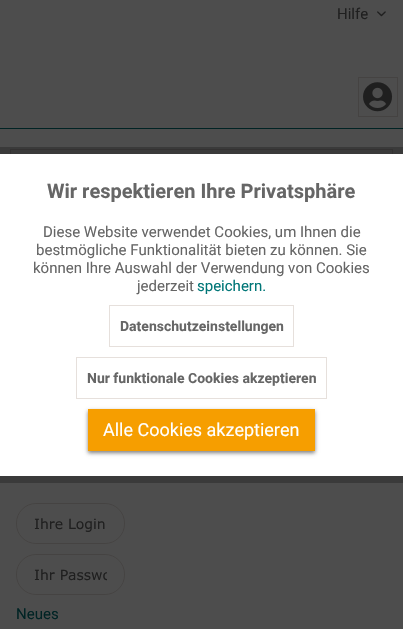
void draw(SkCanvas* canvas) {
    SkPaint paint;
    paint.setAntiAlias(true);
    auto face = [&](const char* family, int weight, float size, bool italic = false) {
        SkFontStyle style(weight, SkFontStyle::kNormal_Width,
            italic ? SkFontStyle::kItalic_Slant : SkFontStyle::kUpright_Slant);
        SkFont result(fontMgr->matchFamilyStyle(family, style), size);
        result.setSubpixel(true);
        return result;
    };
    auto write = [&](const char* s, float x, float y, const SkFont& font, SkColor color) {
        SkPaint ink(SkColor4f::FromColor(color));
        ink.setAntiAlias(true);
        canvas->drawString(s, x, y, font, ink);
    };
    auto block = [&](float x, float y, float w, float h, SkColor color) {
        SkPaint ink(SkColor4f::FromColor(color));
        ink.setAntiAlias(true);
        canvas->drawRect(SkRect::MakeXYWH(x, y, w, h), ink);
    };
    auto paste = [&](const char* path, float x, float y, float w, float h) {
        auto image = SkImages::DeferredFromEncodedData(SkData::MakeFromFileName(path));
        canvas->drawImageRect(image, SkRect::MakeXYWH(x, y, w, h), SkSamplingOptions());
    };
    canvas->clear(SkColorSetRGB(77, 77, 77));
    block(0, 128, 403, 1, SkColorSetRGB(0, 35, 36));
    auto kFont1 = face("Roboto", 400, 15);
    write("Hilfe", 337, 19, kFont1, SkColorSetRGB(31, 31, 31));
    paste("pic1.png", 377, 11, 9, 6);
    paint.setStyle(SkPaint::kStroke_Style);
    paint.setStrokeWidth(1);
    paint.setColor(SkColorSetRGB(69, 67, 66));
    canvas->drawRect(SkRect::MakeXYWH(358.5f, 77.5f, 39, 39), paint);
    paste("pic2.png", 363, 82, 30, 30);
    canvas->drawRect(SkRect::MakeXYWH(10.5f, 149.5f, 382, 279), paint);
    canvas->drawRoundRect(SkRect::MakeXYWH(16.5f, 503.5f, 108, 40), 19.5f, 19.5f, paint);
    auto kFont2 = face("Verdana", 400, 14);
    write("Ihre Login", 34, 529, kFont2, SkColorSetRGB(31, 31, 31));
    canvas->drawRoundRect(SkRect::MakeXYWH(16.5f, 554.5f, 108, 40), 19.5f, 19.5f, paint);
    canvas->save();
    canvas->clipRect(SkRect::MakeXYWH(34, 566, 73, 17));
    write("Ihr Passwo", 34, 580, kFont2, SkColorSetRGB(31, 31, 31));
    canvas->restore();
    write("Neues", 16, 619, kFont1, SkColorSetRGB(0, 35, 36));
    paint.setStrokeWidth(7);
    paint.setColor(SkColorSetARGB(64, 0, 0, 0));
    canvas->drawRect(SkRect::MakeXYWH(-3.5f, 150.5f, 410, 329), paint);
    block(0, 154, 403, 322, SK_ColorWHITE);
    auto kFont3 = face("Roboto", 700, 20);
    write("Wir respektieren Ihre Privatsphäre", 47, 198, kFont3, SkColorSetRGB(102, 102, 102));
    write("Diese Website verwendet Cookies, um Ihnen die", 43, 237, kFont1, SkColorSetRGB(102, 102, 102));
    write("bestmögliche Funktionalität bieten zu können. Sie", 36, 255, kFont1, SkColorSetRGB(102, 102, 102));
    write("können Ihre Auswahl der Verwendung von Cookies", 33, 273, kFont1, SkColorSetRGB(102, 102, 102));
    write("jederzeit", 137, 291, kFont1, SkColorSetRGB(102, 102, 102));
    write("speichern.", 197, 291, kFont1, SkColorSetRGB(0, 118, 119));
    paint.setStrokeWidth(1);
    paint.setColor(SkColorSetRGB(230, 224, 220));
    canvas->drawRect(SkRect::MakeXYWH(109.5f, 305.5f, 184, 41), paint);
    auto kFont4 = face("Roboto", 700, 14);
    write("Datenschutzeinstellungen", 120, 331, kFont4, SkColorSetRGB(102, 102, 102));
    canvas->drawRect(SkRect::MakeXYWH(76.5f, 357.5f, 250, 41), paint);
    write("Nur funktionale Cookies akzeptieren", 87, 383, kFont4, SkColorSetRGB(102, 102, 102));
    paint.setStyle(SkPaint::kFill_Style);
    paint.setColor(SkColorSetARGB(128, 0, 0, 0));
    paint.setMaskFilter(SkMaskFilter::MakeBlur(kNormal_SkBlurStyle, 2));
    canvas->drawRect(SkRect::MakeXYWH(88, 411, 227, 42), paint);
    paint.setMaskFilter(nullptr);
    block(88, 409, 227, 42, SkColorSetRGB(246, 158, 0));
    auto kFont5 = face("Roboto", 400, 18);
    write("Alle Cookies akzeptieren", 103, 436, kFont5, SK_ColorWHITE);
}
